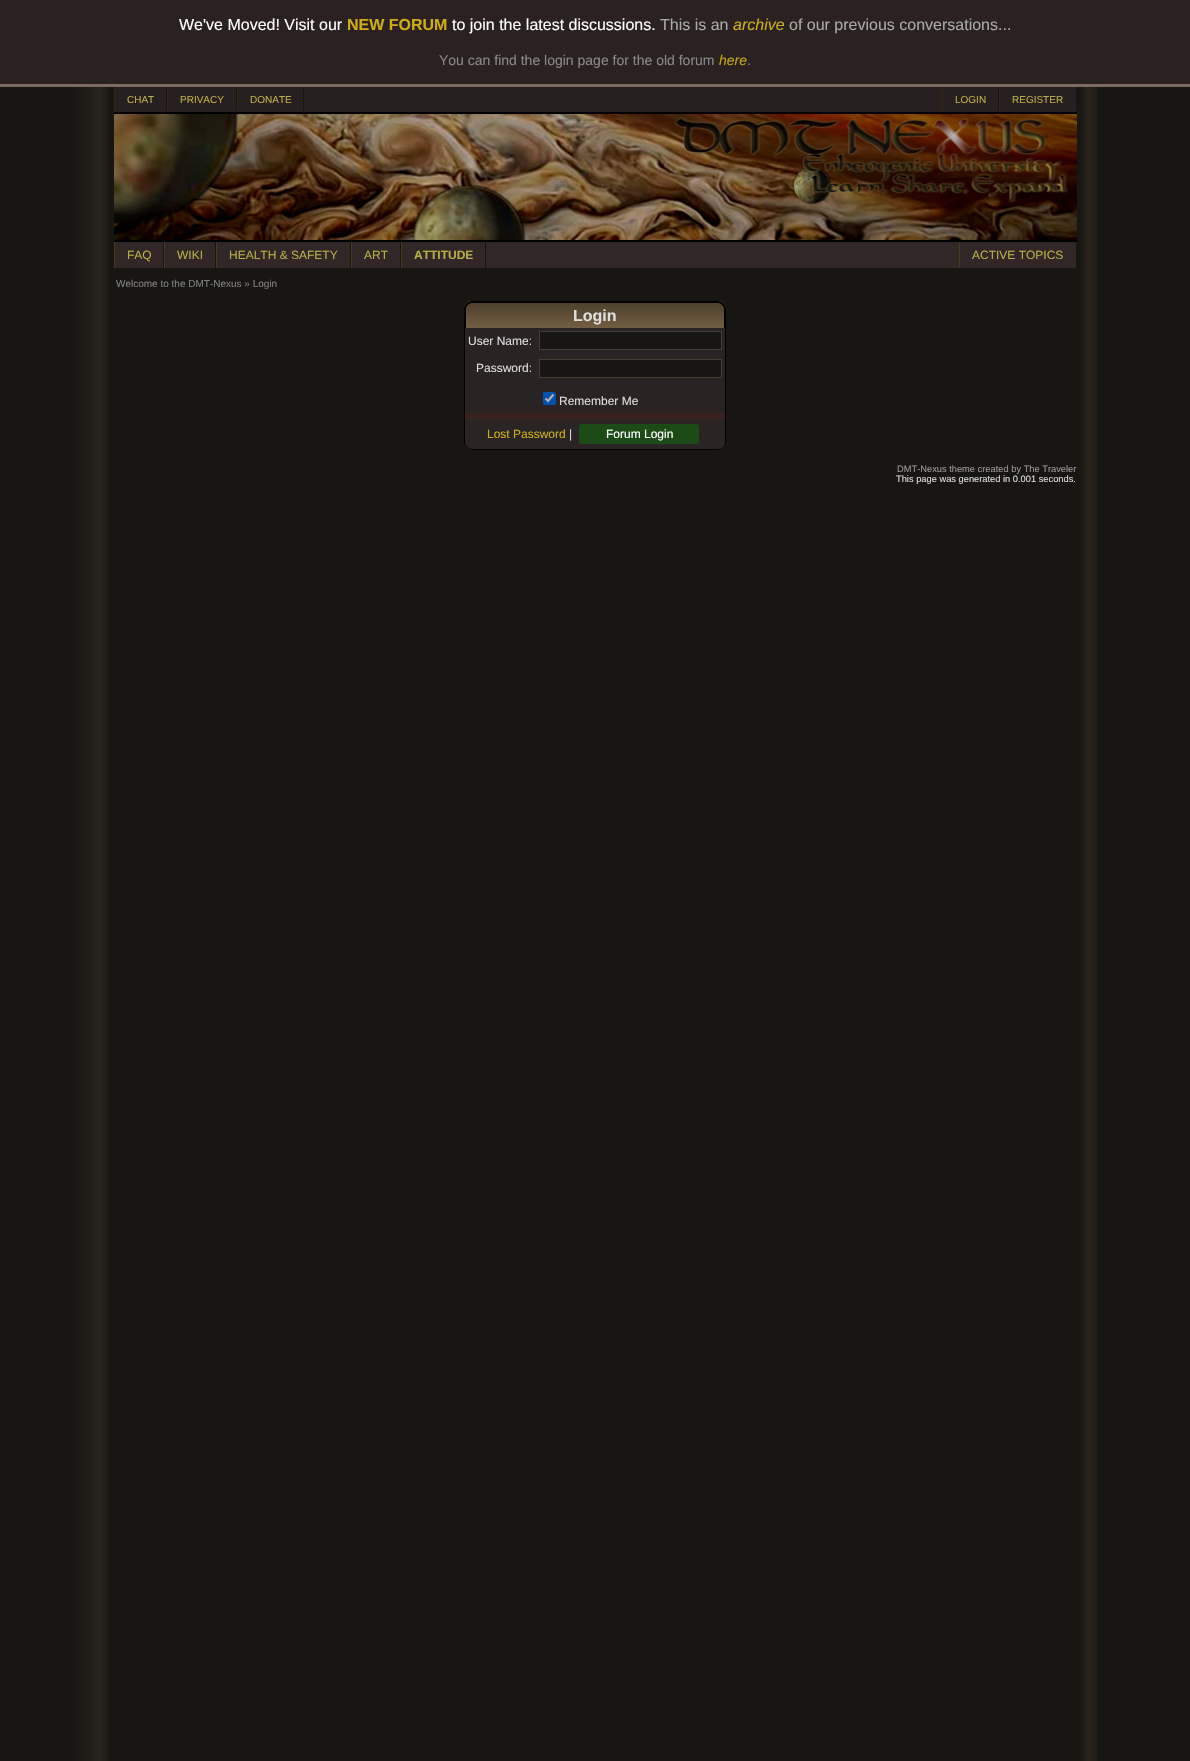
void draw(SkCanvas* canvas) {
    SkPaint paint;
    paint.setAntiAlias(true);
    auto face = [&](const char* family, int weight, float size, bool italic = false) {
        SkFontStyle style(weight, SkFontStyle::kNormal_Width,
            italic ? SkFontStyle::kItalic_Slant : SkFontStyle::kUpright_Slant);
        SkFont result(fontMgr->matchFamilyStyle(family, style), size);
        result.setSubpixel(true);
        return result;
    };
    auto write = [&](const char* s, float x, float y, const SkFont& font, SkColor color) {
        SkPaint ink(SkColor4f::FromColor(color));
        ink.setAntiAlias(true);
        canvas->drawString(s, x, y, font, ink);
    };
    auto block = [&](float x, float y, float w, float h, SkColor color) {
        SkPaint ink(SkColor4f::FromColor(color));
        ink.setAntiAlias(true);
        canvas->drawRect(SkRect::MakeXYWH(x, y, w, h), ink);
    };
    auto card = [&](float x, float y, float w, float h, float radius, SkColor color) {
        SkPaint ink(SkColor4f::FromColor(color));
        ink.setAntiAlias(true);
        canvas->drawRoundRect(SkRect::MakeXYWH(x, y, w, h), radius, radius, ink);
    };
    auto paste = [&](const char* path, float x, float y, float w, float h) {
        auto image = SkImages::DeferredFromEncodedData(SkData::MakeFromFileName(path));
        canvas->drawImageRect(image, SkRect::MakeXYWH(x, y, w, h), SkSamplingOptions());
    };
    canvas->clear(SkColorSetRGB(34, 31, 27));
    paste("pic1.png", 75, 87, 1023, 1674);
    block(114, 87, 963, 25, SkColorSetRGB(57, 46, 45));
    block(114, 112, 963, 2, SK_ColorBLACK);
    block(166, 88, 1, 23, SkColorSetRGB(34, 29, 28));
    block(114, 88, 1, 23, SkColorSetRGB(73, 58, 25));
    block(236, 88, 1, 23, SkColorSetRGB(34, 29, 28));
    block(167, 88, 1, 23, SkColorSetRGB(73, 58, 25));
    block(303, 88, 1, 23, SkColorSetRGB(34, 29, 28));
    block(237, 88, 1, 23, SkColorSetRGB(73, 58, 25));
    block(998, 88, 1, 23, SkColorSetRGB(34, 29, 28));
    block(942, 88, 1, 23, SkColorSetRGB(73, 58, 25));
    block(1076, 88, 1, 23, SkColorSetRGB(34, 29, 28));
    block(999, 88, 1, 23, SkColorSetRGB(73, 58, 25));
    paste("pic2.png", 114, 114, 963, 126);
    block(115, 242, 961, 26, SkColorSetRGB(68, 55, 54));
    block(114, 240, 963, 2, SK_ColorBLACK);
    block(163, 242, 1, 26, SkColorSetRGB(34, 29, 28));
    block(114, 242, 1, 26, SkColorSetRGB(103, 82, 37));
    block(215, 242, 1, 26, SkColorSetRGB(34, 29, 28));
    block(164, 242, 1, 26, SkColorSetRGB(103, 82, 37));
    block(350, 242, 1, 26, SkColorSetRGB(34, 29, 28));
    block(216, 242, 1, 26, SkColorSetRGB(103, 82, 37));
    block(400, 242, 1, 26, SkColorSetRGB(34, 29, 28));
    block(351, 242, 1, 26, SkColorSetRGB(103, 82, 37));
    block(485, 242, 1, 26, SkColorSetRGB(34, 29, 28));
    block(401, 242, 1, 26, SkColorSetRGB(103, 82, 37));
    block(959, 242, 1, 26, SkColorSetRGB(103, 82, 37));
    paste("pic3.png", 464, 301, 262, 27);
    paint.setColor(SK_ColorBLACK);
    canvas->drawPath(SkPathBuilder(SkPathFillType::kEvenOdd).moveTo(472, 301).lineTo(718, 301).cubicTo(722, 301, 726, 305, 726, 309).lineTo(726, 328).lineTo(464, 328).lineTo(464, 309).cubicTo(464, 305, 468, 301, 472, 301).close().moveTo(472, 303).lineTo(718, 303).cubicTo(721, 303, 724, 306, 724, 309).lineTo(724, 328).lineTo(466, 328).lineTo(466, 309).cubicTo(466, 306, 469, 303, 472, 303).close().detach(), paint);
    block(465, 328, 260, 25, SkColorSetRGB(60, 50, 50));
    block(464, 328, 1, 85, SK_ColorBLACK);
    block(725, 328, 1, 85, SK_ColorBLACK);
    paint.setColor(SkColorSetRGB(34, 31, 27));
    canvas->drawRect(SkRect::MakeXYWH(539.5f, 331.5f, 182, 18), paint);
    paint.setStyle(SkPaint::kStroke_Style);
    paint.setStrokeWidth(1);
    paint.setColor(SkColorSetRGB(96, 92, 74));
    canvas->drawRect(SkRect::MakeXYWH(539.5f, 331.5f, 182, 18), paint);
    block(465, 353, 260, 30, SkColorSetRGB(60, 50, 50));
    paint.setStyle(SkPaint::kFill_Style);
    paint.setColor(SkColorSetRGB(34, 31, 27));
    canvas->drawRect(SkRect::MakeXYWH(539.5f, 359.5f, 182, 18), paint);
    paint.setStyle(SkPaint::kStroke_Style);
    paint.setColor(SkColorSetRGB(96, 92, 74));
    canvas->drawRect(SkRect::MakeXYWH(539.5f, 359.5f, 182, 18), paint);
    block(465, 383, 260, 30, SkColorSetRGB(60, 50, 50));
    card(543, 392, 13, 13, 2, SkColorSetRGB(0, 117, 255));
    paint.setStrokeWidth(2.1f);
    paint.setColor(SK_ColorWHITE);
    canvas->drawPath(SkPathBuilder().moveTo(545.5f, 398.5f).lineTo(548, 401).lineTo(553.5f, 394.5f).detach(), paint);
    block(464, 413, 262, 6, SkColorSetRGB(82, 48, 41));
    block(464, 413, 1, 6, SK_ColorBLACK);
    block(725, 413, 1, 6, SK_ColorBLACK);
    paint.setStyle(SkPaint::kFill_Style);
    paint.setColor(SkColorSetRGB(59, 53, 51));
    canvas->drawPath(SkPathBuilder().moveTo(464, 419).lineTo(726, 419).lineTo(726, 442).cubicTo(726, 446.5f, 722.5f, 450, 718, 450).lineTo(472, 450).cubicTo(467.5f, 450, 464, 446.5f, 464, 442).close().detach(), paint);
    paint.setColor(SK_ColorBLACK);
    canvas->drawPath(SkPathBuilder(SkPathFillType::kEvenOdd).moveTo(464, 419).lineTo(726, 419).lineTo(726, 442).cubicTo(726, 446, 722, 450, 718, 450).lineTo(472, 450).cubicTo(468, 450, 464, 446, 464, 442).close().moveTo(465, 419).lineTo(725, 419).lineTo(725, 442).cubicTo(725, 446, 722, 449, 718, 449).lineTo(472, 449).cubicTo(468, 449, 465, 446, 465, 442).close().detach(), paint);
    card(579, 424, 120, 20, 3, SkColorSetRGB(40, 107, 33));
    paint.setColor(SkColorSetARGB(77, 0, 0, 0));
    paint.setMaskFilter(SkMaskFilter::MakeBlur(kNormal_SkBlurStyle, 4));
    canvas->drawRect(SkRect::MakeXYWH(-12, -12, 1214, 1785), paint);
    paint.setMaskFilter(nullptr);
    block(0, 0, 1190, 84, SkColorSetRGB(43, 33, 33));
    block(0, 84, 1190, 3, SkColorSetRGB(125, 106, 97));
    auto kFont1 = face("Liberation Sans", 400, 16);
    write("We've Moved! Visit our", 179, 30, kFont1, SK_ColorWHITE);
    auto kFont2 = face("Liberation Sans", 700, 16);
    write("NEW FORUM", 347, 30, kFont2, SkColorSetRGB(206, 174, 24));
    write("to join the latest discussions.", 452, 30, kFont1, SK_ColorWHITE);
    write("This is an", 660, 30, kFont1, SkColorSetRGB(170, 170, 170));
    auto kFont3 = face("Liberation Sans", 400, 16, true);
    write("archive", 733, 30, kFont3, SkColorSetRGB(206, 174, 24));
    write("of our previous conversations...", 789, 30, kFont1, SkColorSetRGB(170, 170, 170));
    auto kFont4 = face("Liberation Sans", 400, 14);
    write("You can find the login page for the old forum", 439, 65, kFont4, SkColorSetRGB(136, 136, 136));
    auto kFont5 = face("Liberation Sans", 400, 14, true);
    write("here", 719, 65, kFont5, SkColorSetRGB(196, 164, 16));
    write(".", 747, 65, kFont4, SkColorSetRGB(136, 136, 136));
    auto kFont6 = face("Liberation Sans", 400, 10);
    write("CHAT", 127, 103, kFont6, SkColorSetRGB(184, 175, 70));
    write("PRIVACY", 180, 103, kFont6, SkColorSetRGB(184, 175, 70));
    write("DONATE", 250, 103, kFont6, SkColorSetRGB(184, 175, 70));
    write("LOGIN", 955, 103, kFont6, SkColorSetRGB(184, 175, 70));
    write("REGISTER", 1012, 103, kFont6, SkColorSetRGB(184, 175, 70));
    auto kFont7 = face("Liberation Sans", 400, 12);
    write("FAQ", 127, 259, kFont7, SkColorSetRGB(184, 175, 70));
    write("WIKI", 177, 259, kFont7, SkColorSetRGB(184, 175, 70));
    write("HEALTH & SAFETY", 229, 259, kFont7, SkColorSetRGB(184, 175, 70));
    write("ART", 364, 259, kFont7, SkColorSetRGB(184, 175, 70));
    auto kFont8 = face("Liberation Sans", 700, 12);
    write("ATTITUDE", 414, 259, kFont8, SkColorSetRGB(184, 175, 70));
    write("ACTIVE TOPICS", 972, 259, kFont7, SkColorSetRGB(184, 175, 70));
    write("Welcome to the DMT-Nexus » Login", 116, 287, kFont6, SkColorSetRGB(128, 128, 128));
    write("Login", 573, 321, kFont2, SkColorSetRGB(222, 223, 222));
    write("User Name:", 468, 345, kFont7, SkColorSetRGB(222, 223, 222));
    write("Password:", 476, 372, kFont7, SkColorSetRGB(222, 223, 222));
    write("Remember Me", 559, 405, kFont7, SkColorSetRGB(222, 223, 222));
    write("Lost Password", 487, 438, kFont7, SkColorSetRGB(206, 174, 24));
    write("|", 569, 438, kFont7, SkColorSetRGB(222, 223, 222));
    write("Forum Login", 606, 438, kFont7, SK_ColorWHITE);
    auto kFont9 = face("Liberation Sans", 400, 9.3f);
    write("DMT-Nexus theme created by The Traveler", 897, 472, kFont9, SkColorSetRGB(153, 153, 153));
    write("This page was generated in 0.001 seconds.", 896, 482, kFont9, SkColorSetRGB(222, 223, 222));
}
